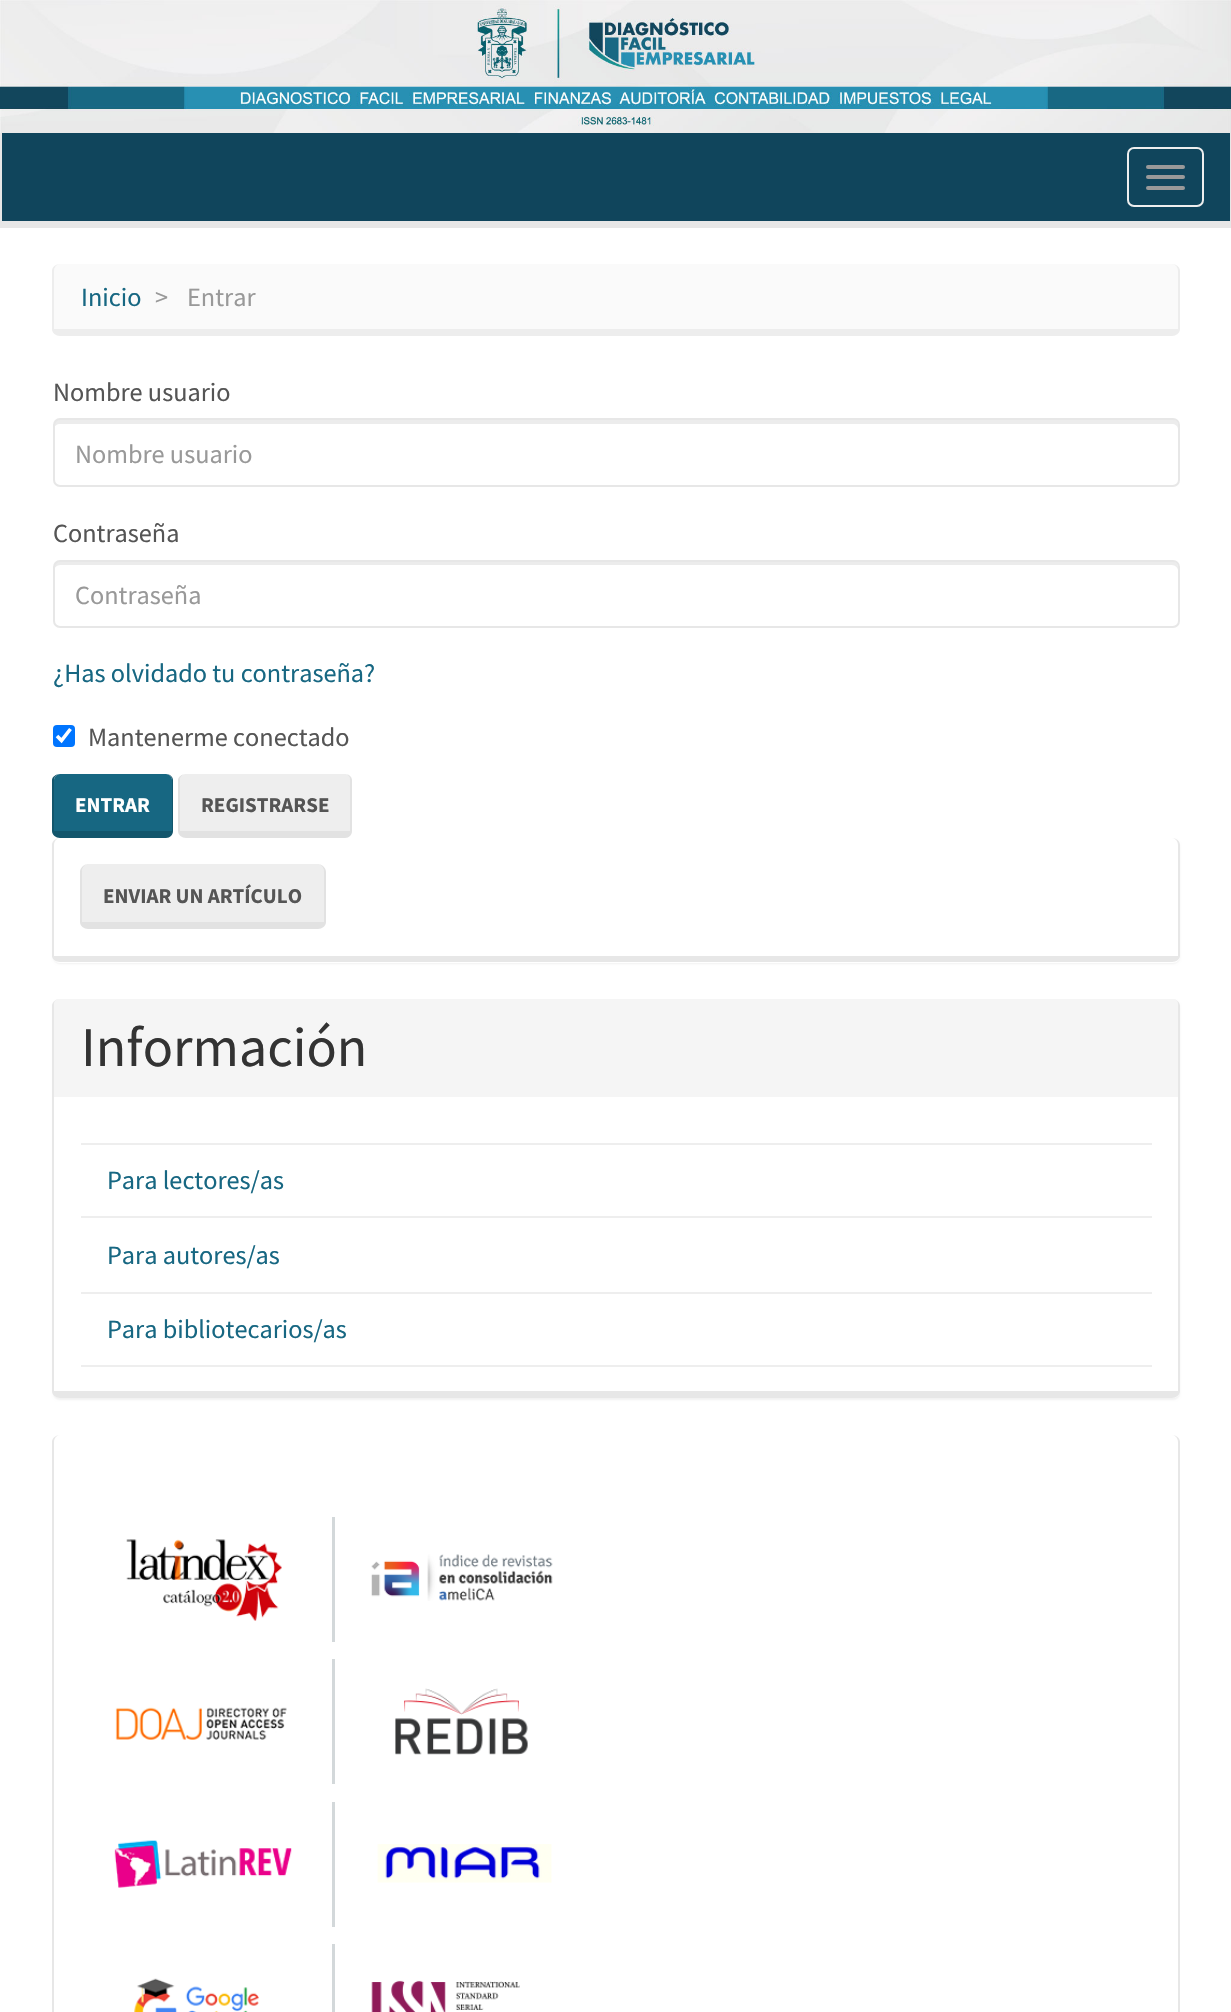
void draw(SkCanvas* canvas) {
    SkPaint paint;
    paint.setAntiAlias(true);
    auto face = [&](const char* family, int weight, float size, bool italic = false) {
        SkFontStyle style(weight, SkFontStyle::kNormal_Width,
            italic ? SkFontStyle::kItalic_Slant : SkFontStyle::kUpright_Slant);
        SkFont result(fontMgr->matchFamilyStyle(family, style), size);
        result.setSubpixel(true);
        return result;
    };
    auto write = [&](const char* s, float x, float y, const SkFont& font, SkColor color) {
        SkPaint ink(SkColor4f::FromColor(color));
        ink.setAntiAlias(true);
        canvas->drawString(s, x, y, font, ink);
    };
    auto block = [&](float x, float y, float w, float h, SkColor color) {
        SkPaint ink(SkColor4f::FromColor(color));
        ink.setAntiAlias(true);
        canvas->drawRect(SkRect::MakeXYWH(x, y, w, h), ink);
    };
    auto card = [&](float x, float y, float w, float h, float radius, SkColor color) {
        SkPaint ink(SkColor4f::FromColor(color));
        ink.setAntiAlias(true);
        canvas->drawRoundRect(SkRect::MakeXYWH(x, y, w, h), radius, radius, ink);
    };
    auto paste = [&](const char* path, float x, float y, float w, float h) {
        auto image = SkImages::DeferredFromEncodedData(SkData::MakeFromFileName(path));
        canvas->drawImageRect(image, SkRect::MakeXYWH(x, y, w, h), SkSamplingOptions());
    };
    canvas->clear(SK_ColorWHITE);
    paste("pic1.png", 0, 0, 1231, 133);
    block(2, 133, 1228, 88, SkColorSetRGB(16, 69, 92));
    block(1230, 133, 1, 95, SkColorSetRGB(231, 231, 231));
    block(0, 221, 1231, 7, SkColorSetRGB(231, 231, 231));
    block(0, 133, 2, 95, SkColorSetRGB(231, 231, 231));
    paint.setStyle(SkPaint::kStroke_Style);
    paint.setStrokeWidth(2);
    paint.setColor(SkColorSetRGB(238, 238, 238));
    canvas->drawRoundRect(SkRect::MakeXYWH(1128, 148, 75, 58), 6, 6, paint);
    card(1146, 165, 39, 4, 2, SkColorSetRGB(153, 153, 153));
    card(1146, 175, 39, 4, 2, SkColorSetRGB(153, 153, 153));
    card(1146, 186, 39, 4, 2, SkColorSetRGB(153, 153, 153));
    paint.setStyle(SkPaint::kFill_Style);
    paint.setColor(SkColorSetRGB(250, 250, 250));
    canvas->drawPath(SkPathBuilder().moveTo(60, 264).lineTo(1172, 264).cubicTo(1175, 264, 1178, 267, 1178, 271).lineTo(1178, 329).lineTo(54, 329).lineTo(54, 271).cubicTo(54, 267, 57, 264, 60, 264).close().detach(), paint);
    paint.setColor(SkColorSetRGB(237, 237, 237));
    canvas->drawPath(SkPathBuilder(SkPathFillType::kEvenOdd).moveTo(60, 264).lineTo(1172, 264).cubicTo(1176, 264, 1180, 267, 1180, 271).lineTo(1180, 329).cubicTo(1180, 333, 1176, 336, 1172, 336).lineTo(60, 336).cubicTo(56, 336, 52, 333, 52, 329).lineTo(52, 271).cubicTo(52, 267, 56, 264, 60, 264).close().moveTo(60, 264).lineTo(1172, 264).cubicTo(1175, 264, 1178, 267, 1178, 271).lineTo(1178, 329).lineTo(54, 329).lineTo(54, 271).cubicTo(54, 267, 57, 264, 60, 264).close().detach(), paint);
    auto kFont1 = face("Source Sans Pro", 400, 26.25f);
    write("Inicio", 81, 306, kFont1, SkColorSetRGB(23, 103, 130));
    write(">", 155, 306, kFont1, SkColorSetRGB(153, 153, 153));
    write("Entrar", 187, 306, kFont1, SkColorSetRGB(153, 153, 153));
    write("Nombre usuario", 53, 401, kFont1, SkColorSetRGB(85, 85, 85));
    paint.setColor(SkColorSetRGB(236, 236, 236));
    canvas->drawPath(SkPathBuilder().moveTo(60, 424).lineTo(1172, 424).cubicTo(1175, 424, 1178, 426, 1178, 429).lineTo(1178, 425).cubicTo(1178, 422, 1176, 420, 1173, 420).lineTo(59, 420).cubicTo(56, 420, 54, 422, 54, 425).lineTo(54, 429).cubicTo(54, 426, 57, 424, 60, 424).close().detach(), paint);
    paint.setStyle(SkPaint::kStroke_Style);
    paint.setColor(SkColorSetRGB(231, 231, 231));
    canvas->drawRoundRect(SkRect::MakeXYWH(54, 419, 1125, 67), 6, 6, paint);
    write("Nombre usuario", 75, 463, kFont1, SkColorSetRGB(153, 153, 153));
    write("Contraseña", 53, 542, kFont1, SkColorSetRGB(85, 85, 85));
    paint.setStyle(SkPaint::kFill_Style);
    paint.setColor(SkColorSetRGB(236, 236, 236));
    canvas->drawPath(SkPathBuilder().moveTo(60, 565).lineTo(1172, 565).cubicTo(1175, 565, 1178, 568, 1178, 570).lineTo(1178, 567).cubicTo(1178, 564, 1176, 562, 1173, 562).lineTo(59, 562).cubicTo(56, 562, 54, 564, 54, 567).lineTo(54, 570).cubicTo(54, 568, 57, 565, 60, 565).close().detach(), paint);
    paint.setStyle(SkPaint::kStroke_Style);
    paint.setColor(SkColorSetRGB(231, 231, 231));
    canvas->drawRoundRect(SkRect::MakeXYWH(54, 561, 1125, 66), 6, 6, paint);
    write("Contraseña", 75, 604, kFont1, SkColorSetRGB(153, 153, 153));
    write("¿Has olvidado tu contraseña?", 53, 682, kFont1, SkColorSetRGB(23, 103, 130));
    card(53, 725, 22, 22, 4, SkColorSetRGB(0, 117, 255));
    paint.setStrokeWidth(3.6f);
    paint.setColor(SK_ColorWHITE);
    canvas->drawPath(SkPathBuilder().moveTo(57, 736).lineTo(61.5f, 740.5f).lineTo(70.5f, 729).detach(), paint);
    write("Mantenerme conectado", 88, 746, kFont1, SkColorSetRGB(85, 85, 85));
    paint.setStyle(SkPaint::kFill_Style);
    paint.setColor(SkColorSetRGB(23, 103, 130));
    canvas->drawPath(SkPathBuilder().moveTo(60, 774).lineTo(166, 774).cubicTo(169, 774, 172, 777, 172, 780).lineTo(172, 831).lineTo(54, 831).lineTo(54, 780).cubicTo(54, 777, 57, 774, 60, 774).close().detach(), paint);
    paint.setColor(SkColorSetRGB(19, 86, 108));
    canvas->drawPath(SkPathBuilder(SkPathFillType::kEvenOdd).moveTo(60, 774).lineTo(166, 774).cubicTo(170, 774, 173, 777, 173, 780).lineTo(173, 831).cubicTo(173, 835, 170, 838, 166, 838).lineTo(60, 838).cubicTo(56, 838, 52, 835, 52, 831).lineTo(52, 780).cubicTo(52, 777, 56, 774, 60, 774).close().moveTo(60, 774).lineTo(166, 774).cubicTo(169, 774, 172, 777, 172, 780).lineTo(172, 831).lineTo(54, 831).lineTo(54, 780).cubicTo(54, 777, 57, 774, 60, 774).close().detach(), paint);
    auto kFont2 = face("Source Sans Pro", 700, 21);
    write("ENTRAR", 75, 812, kFont2, SK_ColorWHITE);
    paint.setColor(SkColorSetRGB(238, 238, 238));
    canvas->drawPath(SkPathBuilder().moveTo(186, 774).lineTo(345, 774).cubicTo(348, 774, 350, 777, 350, 780).lineTo(350, 831).lineTo(180, 831).lineTo(180, 780).cubicTo(180, 777, 183, 774, 186, 774).close().detach(), paint);
    paint.setColor(SkColorSetRGB(226, 226, 226));
    canvas->drawPath(SkPathBuilder(SkPathFillType::kEvenOdd).moveTo(186, 774).lineTo(345, 774).cubicTo(349, 774, 352, 777, 352, 780).lineTo(352, 831).cubicTo(352, 835, 349, 838, 345, 838).lineTo(186, 838).cubicTo(182, 838, 178, 835, 178, 831).lineTo(178, 780).cubicTo(178, 777, 182, 774, 186, 774).close().moveTo(186, 774).lineTo(345, 774).cubicTo(348, 774, 350, 777, 350, 780).lineTo(350, 831).lineTo(180, 831).lineTo(180, 780).cubicTo(180, 777, 183, 774, 186, 774).close().detach(), paint);
    write("REGISTRARSE", 201, 812, kFont2, SkColorSetRGB(85, 85, 85));
    canvas->save();
    canvas->clipPath(SkPathBuilder(SkPathFillType::kEvenOdd).moveTo(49, 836).lineTo(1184, 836).lineTo(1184, 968).lineTo(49, 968).close().moveTo(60, 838).lineTo(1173, 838).cubicTo(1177, 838, 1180, 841, 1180, 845).lineTo(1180, 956).cubicTo(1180, 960, 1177, 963, 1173, 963).lineTo(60, 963).cubicTo(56, 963, 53, 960, 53, 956).lineTo(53, 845).cubicTo(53, 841, 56, 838, 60, 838).close().detach(), true);
    paint.setColor(SkColorSetARGB(13, 0, 0, 0));
    paint.setMaskFilter(SkMaskFilter::MakeBlur(kNormal_SkBlurStyle, 1));
    canvas->drawRoundRect(SkRect::MakeXYWH(53, 840, 1127, 124), 7, 7, paint);
    paint.setMaskFilter(nullptr);
    canvas->restore();
    paint.setColor(SkColorSetRGB(231, 231, 231));
    canvas->drawPath(SkPathBuilder(SkPathFillType::kEvenOdd).moveTo(60, 838).lineTo(1172, 838).cubicTo(1176, 838, 1180, 841, 1180, 845).lineTo(1180, 956).cubicTo(1180, 959, 1176, 962, 1172, 962).lineTo(60, 962).cubicTo(56, 962, 52, 959, 52, 956).lineTo(52, 845).cubicTo(52, 841, 56, 838, 60, 838).close().moveTo(60, 838).lineTo(1172, 838).cubicTo(1175, 838, 1178, 841, 1178, 845).lineTo(1178, 956).lineTo(54, 956).lineTo(54, 845).cubicTo(54, 841, 57, 838, 60, 838).close().detach(), paint);
    paint.setColor(SkColorSetRGB(238, 238, 238));
    canvas->drawPath(SkPathBuilder().moveTo(88, 864).lineTo(318, 864).cubicTo(321, 864, 324, 868, 324, 872).lineTo(324, 922).lineTo(82, 922).lineTo(82, 872).cubicTo(82, 868, 85, 864, 88, 864).close().detach(), paint);
    paint.setColor(SkColorSetRGB(226, 226, 226));
    canvas->drawPath(SkPathBuilder(SkPathFillType::kEvenOdd).moveTo(88, 864).lineTo(318, 864).cubicTo(322, 864, 326, 868, 326, 872).lineTo(326, 922).cubicTo(326, 926, 322, 929, 318, 929).lineTo(88, 929).cubicTo(84, 929, 80, 926, 80, 922).lineTo(80, 872).cubicTo(80, 868, 84, 864, 88, 864).close().moveTo(88, 864).lineTo(318, 864).cubicTo(321, 864, 324, 868, 324, 872).lineTo(324, 922).lineTo(82, 922).lineTo(82, 872).cubicTo(82, 868, 85, 864, 88, 864).close().detach(), paint);
    write("ENVIAR UN ARTÍCULO", 103, 903, kFont2, SkColorSetRGB(85, 85, 85));
    canvas->save();
    canvas->clipPath(SkPathBuilder(SkPathFillType::kEvenOdd).moveTo(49, 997).lineTo(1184, 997).lineTo(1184, 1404).lineTo(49, 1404).close().moveTo(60, 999).lineTo(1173, 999).cubicTo(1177, 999, 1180, 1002, 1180, 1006).lineTo(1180, 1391).cubicTo(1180, 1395, 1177, 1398, 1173, 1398).lineTo(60, 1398).cubicTo(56, 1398, 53, 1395, 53, 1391).lineTo(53, 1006).cubicTo(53, 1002, 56, 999, 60, 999).close().detach(), true);
    paint.setColor(SkColorSetARGB(13, 0, 0, 0));
    paint.setMaskFilter(SkMaskFilter::MakeBlur(kNormal_SkBlurStyle, 1));
    canvas->drawRoundRect(SkRect::MakeXYWH(53, 1001, 1127, 399), 7, 7, paint);
    paint.setMaskFilter(nullptr);
    canvas->restore();
    paint.setColor(SkColorSetRGB(231, 231, 231));
    canvas->drawPath(SkPathBuilder(SkPathFillType::kEvenOdd).moveTo(60, 999).lineTo(1172, 999).cubicTo(1176, 999, 1180, 1002, 1180, 1006).lineTo(1180, 1391).cubicTo(1180, 1395, 1176, 1398, 1172, 1398).lineTo(60, 1398).cubicTo(56, 1398, 52, 1395, 52, 1391).lineTo(52, 1006).cubicTo(52, 1002, 56, 999, 60, 999).close().moveTo(60, 999).lineTo(1172, 999).cubicTo(1175, 999, 1178, 1002, 1178, 1006).lineTo(1178, 1391).lineTo(54, 1391).lineTo(54, 1006).cubicTo(54, 1002, 57, 999, 60, 999).close().detach(), paint);
    paint.setColor(SkColorSetRGB(245, 245, 245));
    canvas->drawPath(SkPathBuilder().moveTo(59, 999).lineTo(1173, 999).cubicTo(1176, 999, 1178, 1001, 1178, 1004).lineTo(1178, 1097).lineTo(54, 1097).lineTo(54, 1004).cubicTo(54, 1001, 56, 999, 59, 999).close().detach(), paint);
    auto kFont3 = face("Source Sans Pro", 400, 56);
    write("Información", 81, 1066, kFont3, SkColorSetRGB(51, 51, 51));
    block(81, 1143, 1071, 2, SkColorSetRGB(238, 238, 238));
    block(81, 1216, 1071, 2, SkColorSetRGB(238, 238, 238));
    write("Para lectores/as", 107, 1189, kFont1, SkColorSetRGB(23, 103, 130));
    write("Para autores/as", 107, 1264, kFont1, SkColorSetRGB(23, 103, 130));
    block(81, 1292, 1071, 2, SkColorSetRGB(238, 238, 238));
    block(81, 1365, 1071, 2, SkColorSetRGB(238, 238, 238));
    write("Para bibliotecarios/as", 107, 1338, kFont1, SkColorSetRGB(23, 103, 130));
    paint.setColor(SkColorSetRGB(231, 231, 231));
    canvas->drawPath(SkPathBuilder(SkPathFillType::kEvenOdd).moveTo(60, 1435).lineTo(1172, 1435).cubicTo(1176, 1435, 1180, 1438, 1180, 1442).lineTo(1180, 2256).cubicTo(1180, 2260, 1176, 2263, 1172, 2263).lineTo(60, 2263).cubicTo(56, 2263, 52, 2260, 52, 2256).lineTo(52, 1442).cubicTo(52, 1438, 56, 1435, 60, 1435).close().moveTo(60, 1435).lineTo(1172, 1435).cubicTo(1175, 1435, 1178, 1438, 1178, 1442).lineTo(1178, 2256).lineTo(54, 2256).lineTo(54, 1442).cubicTo(54, 1438, 57, 1435, 60, 1435).close().detach(), paint);
    paste("pic2.png", 126, 1539, 156, 82);
    block(332, 1517, 3, 125, SkColorSetRGB(211, 216, 218));
    paste("pic3.png", 371, 1554, 182, 47);
    paste("pic4.png", 115, 1707, 172, 33);
    block(332, 1659, 3, 125, SkColorSetRGB(211, 216, 218));
    paste("pic5.png", 395, 1688, 133, 67);
    paste("pic6.png", 114, 1840, 178, 48);
    block(332, 1802, 3, 125, SkColorSetRGB(211, 216, 218));
    paste("pic7.png", 377, 1844, 175, 39);
    paste("pic8.png", 134, 1978, 125, 34);
    block(332, 1944, 3, 68, SkColorSetRGB(211, 216, 218));
    paste("pic9.png", 371, 1980, 149, 32);
}
